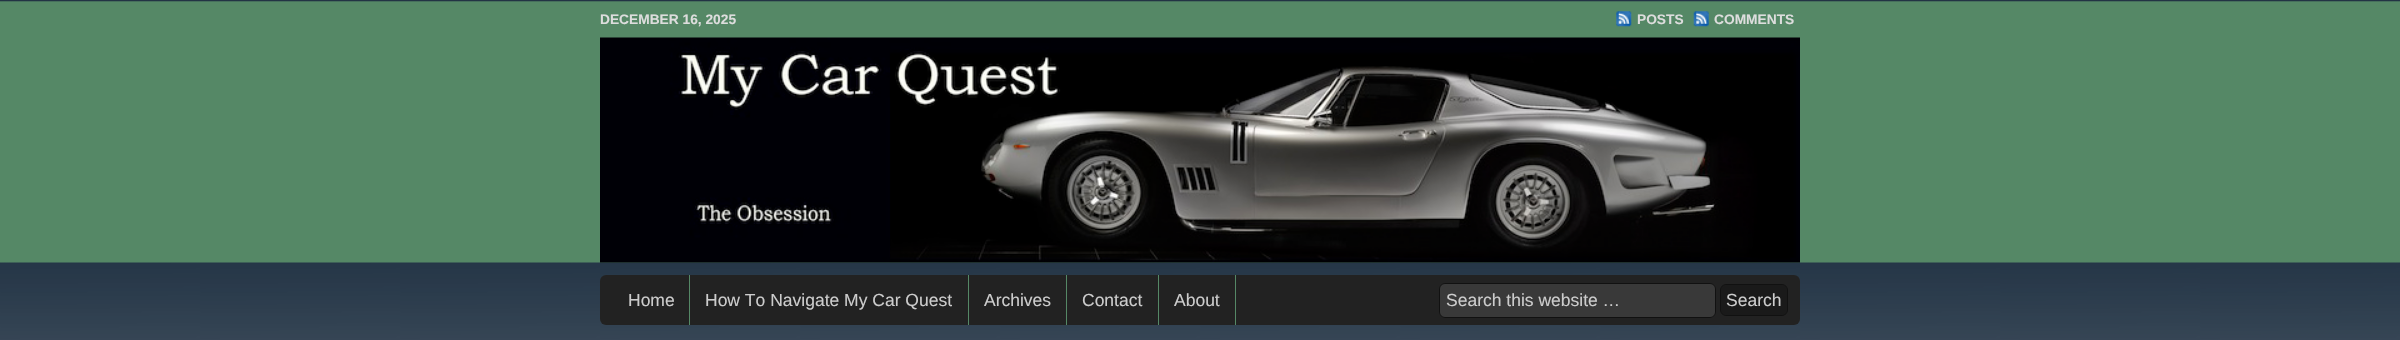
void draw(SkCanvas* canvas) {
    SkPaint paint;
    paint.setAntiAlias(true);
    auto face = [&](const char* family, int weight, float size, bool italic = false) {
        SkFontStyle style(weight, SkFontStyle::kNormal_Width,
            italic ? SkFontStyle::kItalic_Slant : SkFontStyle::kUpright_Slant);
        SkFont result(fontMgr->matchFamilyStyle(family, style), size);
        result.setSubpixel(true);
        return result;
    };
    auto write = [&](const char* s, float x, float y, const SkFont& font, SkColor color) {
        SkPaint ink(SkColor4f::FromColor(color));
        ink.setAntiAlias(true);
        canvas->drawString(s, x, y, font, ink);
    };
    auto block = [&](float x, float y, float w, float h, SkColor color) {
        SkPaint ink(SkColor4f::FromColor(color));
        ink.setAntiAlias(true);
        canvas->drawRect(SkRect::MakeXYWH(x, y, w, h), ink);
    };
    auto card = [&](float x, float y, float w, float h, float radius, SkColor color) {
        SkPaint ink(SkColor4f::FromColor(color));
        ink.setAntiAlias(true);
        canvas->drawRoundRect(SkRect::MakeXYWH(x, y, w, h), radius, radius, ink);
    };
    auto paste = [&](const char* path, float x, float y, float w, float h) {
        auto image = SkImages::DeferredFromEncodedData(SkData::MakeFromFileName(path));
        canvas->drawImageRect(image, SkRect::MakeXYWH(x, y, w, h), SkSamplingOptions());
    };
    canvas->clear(SK_ColorWHITE);
    paste("pic1.png", 0, 0, 2400, 340);
    auto kFont1 = face("Liberation Sans", 700, 13.75f);
    write("DECEMBER 16, 2025", 600, 24, kFont1, SkColorSetRGB(221, 221, 221));
    paste("pic2.png", 1616, 11, 16, 16);
    write("POSTS", 1637, 24, kFont1, SkColorSetRGB(221, 221, 221));
    paste("pic3.png", 1693, 11, 16, 16);
    write("COMMENTS", 1714, 24, kFont1, SkColorSetRGB(221, 221, 221));
    paste("pic4.png", 600, 37, 1200, 226);
    card(600, 275, 1200, 50, 6, SkColorSetRGB(34, 34, 34));
    block(689, 275, 1, 50, SkColorSetRGB(85, 136, 102));
    auto kFont2 = face("Liberation Sans", 400, 17.5f);
    write("Home", 628, 306, kFont2, SkColorSetRGB(204, 204, 204));
    block(968, 275, 1, 50, SkColorSetRGB(85, 136, 102));
    write("How To Navigate My Car Quest", 705, 306, kFont2, SkColorSetRGB(204, 204, 204));
    block(1066, 275, 1, 50, SkColorSetRGB(85, 136, 102));
    write("Archives", 984, 306, kFont2, SkColorSetRGB(204, 204, 204));
    block(1158, 275, 1, 50, SkColorSetRGB(85, 136, 102));
    write("Contact", 1082, 306, kFont2, SkColorSetRGB(204, 204, 204));
    block(1235, 275, 1, 50, SkColorSetRGB(85, 136, 102));
    write("About", 1174, 306, kFont2, SkColorSetRGB(204, 204, 204));
    paint.setColor(SkColorSetRGB(57, 57, 57));
    canvas->drawRoundRect(SkRect::MakeXYWH(1439.5f, 283.5f, 276, 34), 5.5f, 5.5f, paint);
    paint.setStyle(SkPaint::kStroke_Style);
    paint.setStrokeWidth(1);
    paint.setColor(SkColorSetRGB(17, 17, 17));
    canvas->drawRoundRect(SkRect::MakeXYWH(1439.5f, 283.5f, 276, 34), 5.5f, 5.5f, paint);
    write("Search this website …", 1446, 306, kFont2, SkColorSetRGB(204, 204, 204));
    paint.setStyle(SkPaint::kFill_Style);
    paint.setColor(SkColorSetRGB(26, 26, 26));
    canvas->drawRoundRect(SkRect::MakeXYWH(1720.5f, 284.5f, 67, 31), 5.5f, 5.5f, paint);
    paint.setStyle(SkPaint::kStroke_Style);
    paint.setColor(SkColorSetRGB(17, 17, 17));
    canvas->drawRoundRect(SkRect::MakeXYWH(1720.5f, 284.5f, 67, 31), 5.5f, 5.5f, paint);
    write("Search", 1726, 306, kFont2, SkColorSetRGB(204, 204, 204));
}
